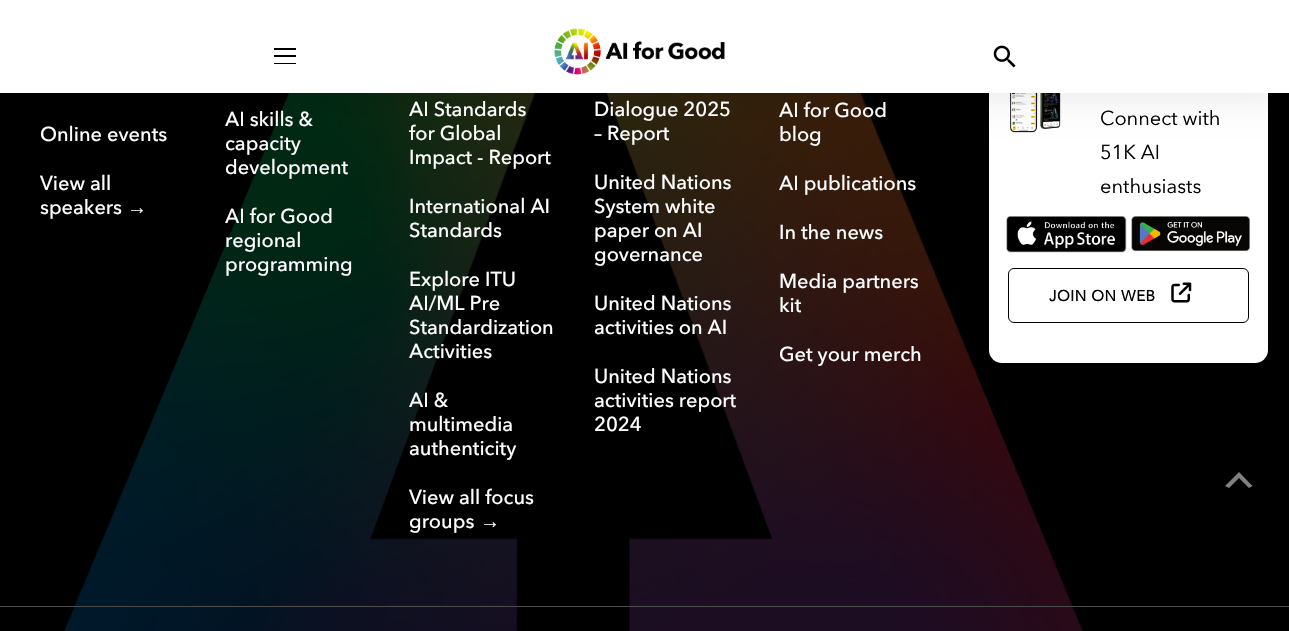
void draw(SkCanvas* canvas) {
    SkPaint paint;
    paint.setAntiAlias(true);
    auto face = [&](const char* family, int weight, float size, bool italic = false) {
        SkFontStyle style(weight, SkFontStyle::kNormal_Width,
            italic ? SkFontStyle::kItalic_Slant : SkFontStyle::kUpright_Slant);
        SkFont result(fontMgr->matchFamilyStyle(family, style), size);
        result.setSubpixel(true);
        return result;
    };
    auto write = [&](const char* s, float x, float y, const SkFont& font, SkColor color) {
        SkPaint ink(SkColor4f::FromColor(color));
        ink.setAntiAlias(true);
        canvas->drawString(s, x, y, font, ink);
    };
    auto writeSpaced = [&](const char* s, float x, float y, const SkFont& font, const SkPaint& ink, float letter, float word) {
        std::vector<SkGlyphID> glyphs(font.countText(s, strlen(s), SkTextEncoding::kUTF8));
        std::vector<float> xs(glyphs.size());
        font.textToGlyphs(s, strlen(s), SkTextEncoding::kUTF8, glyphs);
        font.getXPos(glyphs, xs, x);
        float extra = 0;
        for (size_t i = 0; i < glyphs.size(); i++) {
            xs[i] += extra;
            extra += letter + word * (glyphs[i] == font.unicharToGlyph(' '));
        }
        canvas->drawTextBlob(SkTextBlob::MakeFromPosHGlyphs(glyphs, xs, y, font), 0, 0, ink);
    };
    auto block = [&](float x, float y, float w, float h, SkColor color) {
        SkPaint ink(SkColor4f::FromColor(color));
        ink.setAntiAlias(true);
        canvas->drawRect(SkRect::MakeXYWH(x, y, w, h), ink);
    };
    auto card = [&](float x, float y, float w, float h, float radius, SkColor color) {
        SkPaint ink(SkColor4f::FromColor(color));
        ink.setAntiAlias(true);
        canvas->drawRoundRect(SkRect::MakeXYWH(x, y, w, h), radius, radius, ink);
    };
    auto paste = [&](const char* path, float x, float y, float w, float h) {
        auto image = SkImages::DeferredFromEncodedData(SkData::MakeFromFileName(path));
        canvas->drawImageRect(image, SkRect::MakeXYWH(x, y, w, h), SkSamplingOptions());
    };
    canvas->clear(SK_ColorBLACK);
    paste("pic3.png", 64, 93, 1019, 538);
    card(989, -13, 279, 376, 13, SK_ColorWHITE);
    paste("pic4.png", 1009, 93, 52, 40);
    paint.setColor(SkColorSetARGB(26, 0, 0, 0));
    paint.setMaskFilter(SkMaskFilter::MakeBlur(kNormal_SkBlurStyle, 19));
    canvas->drawRect(SkRect::MakeXYWH(0, 1, 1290, 93), paint);
    paint.setMaskFilter(nullptr);
    block(0, 0, 1289, 93, SK_ColorWHITE);
    block(274, 48, 22, 2, SK_ColorBLACK);
    block(274, 55, 22, 2, SK_ColorBLACK);
    block(274, 63, 22, 1, SK_ColorBLACK);
    paste("pic1.png", 554, 28, 171, 47);
    paste("pic2.png", 993, 45, 23, 23);
    auto kFont1 = face("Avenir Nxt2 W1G", 500, 20);
    write("Online events", 40, 141, kFont1, SK_ColorWHITE);
    write("View all", 40, 190, kFont1, SK_ColorWHITE);
    write("speakers", 40, 214, kFont1, SK_ColorWHITE);
    auto kFont2 = face("Liberation Serif", 400, 20);
    write("→", 127, 214, kFont2, SK_ColorWHITE);
    write("AI skills &", 225, 126, kFont1, SK_ColorWHITE);
    write("capacity", 225, 150, kFont1, SK_ColorWHITE);
    write("development", 225, 174, kFont1, SK_ColorWHITE);
    write("AI for Good", 225, 223, kFont1, SK_ColorWHITE);
    write("regional", 225, 247, kFont1, SK_ColorWHITE);
    write("programming", 225, 271, kFont1, SK_ColorWHITE);
    write("AI Standards", 409, 116, kFont1, SK_ColorWHITE);
    write("for Global", 409, 140, kFont1, SK_ColorWHITE);
    write("Impact - Report", 409, 164, kFont1, SK_ColorWHITE);
    write("International AI", 409, 213, kFont1, SK_ColorWHITE);
    write("Standards", 409, 237, kFont1, SK_ColorWHITE);
    write("Explore ITU", 409, 286, kFont1, SK_ColorWHITE);
    write("AI/ML Pre", 409, 310, kFont1, SK_ColorWHITE);
    write("Standardization", 409, 334, kFont1, SK_ColorWHITE);
    write("Activities", 409, 358, kFont1, SK_ColorWHITE);
    write("AI &", 409, 407, kFont1, SK_ColorWHITE);
    write("multimedia", 409, 431, kFont1, SK_ColorWHITE);
    write("authenticity", 409, 455, kFont1, SK_ColorWHITE);
    write("View all focus", 409, 504, kFont1, SK_ColorWHITE);
    write("groups", 409, 528, kFont1, SK_ColorWHITE);
    write("→", 480, 528, kFont2, SK_ColorWHITE);
    write("Dialogue 2025", 594, 116, kFont1, SK_ColorWHITE);
    write("– Report", 594, 140, kFont1, SK_ColorWHITE);
    write("United Nations", 594, 189, kFont1, SK_ColorWHITE);
    write("System white", 594, 213, kFont1, SK_ColorWHITE);
    write("paper on AI", 594, 237, kFont1, SK_ColorWHITE);
    write("governance", 594, 261, kFont1, SK_ColorWHITE);
    write("United Nations", 594, 310, kFont1, SK_ColorWHITE);
    write("activities on AI", 594, 334, kFont1, SK_ColorWHITE);
    write("United Nations", 594, 383, kFont1, SK_ColorWHITE);
    write("activities report", 594, 407, kFont1, SK_ColorWHITE);
    write("2024", 594, 431, kFont1, SK_ColorWHITE);
    write("AI for Good", 779, 117, kFont1, SK_ColorWHITE);
    write("blog", 779, 141, kFont1, SK_ColorWHITE);
    write("AI publications", 779, 190, kFont1, SK_ColorWHITE);
    write("In the news", 779, 239, kFont1, SK_ColorWHITE);
    write("Media partners", 779, 288, kFont1, SK_ColorWHITE);
    write("kit", 779, 312, kFont1, SK_ColorWHITE);
    write("Get your merch", 779, 361, kFont1, SK_ColorWHITE);
    auto kFont3 = face("Avenir Nxt2 W1G", 400, 20);
    write("Connect with", 1100, 125, kFont3, SK_ColorBLACK);
    write("51K AI", 1100, 159, kFont3, SK_ColorBLACK);
    write("enthusiasts", 1100, 193, kFont3, SK_ColorBLACK);
    paste("pic5.png", 1006, 216, 121, 37);
    paste("pic6.png", 1131, 216, 119, 35);
    paint.setStyle(SkPaint::kStroke_Style);
    paint.setStrokeWidth(1);
    paint.setColor(SK_ColorBLACK);
    canvas->drawRoundRect(SkRect::MakeXYWH(1008.5f, 268.5f, 240, 54), 5.5f, 5.5f, paint);
    auto kFont4 = face("Avenir Nxt2 W1G", 700, 15);
    paint.setStyle(SkPaint::kFill_Style);
    writeSpaced("JOIN ON WEB", 1049, 301, kFont4, paint, 0.6f, 0);
    paste("pic7.png", 1171, 282, 21, 21);
    block(0, 606, 1289, 1, SkColorSetRGB(77, 77, 77));
    paint.setColor(SkColorSetRGB(128, 128, 128));
    canvas->drawPath(SkPathBuilder().moveTo(1249, 488).lineTo(1239, 478).lineTo(1229, 488).lineTo(1225, 486).lineTo(1239, 472).lineTo(1252.5f, 486).close().detach(), paint);
}
